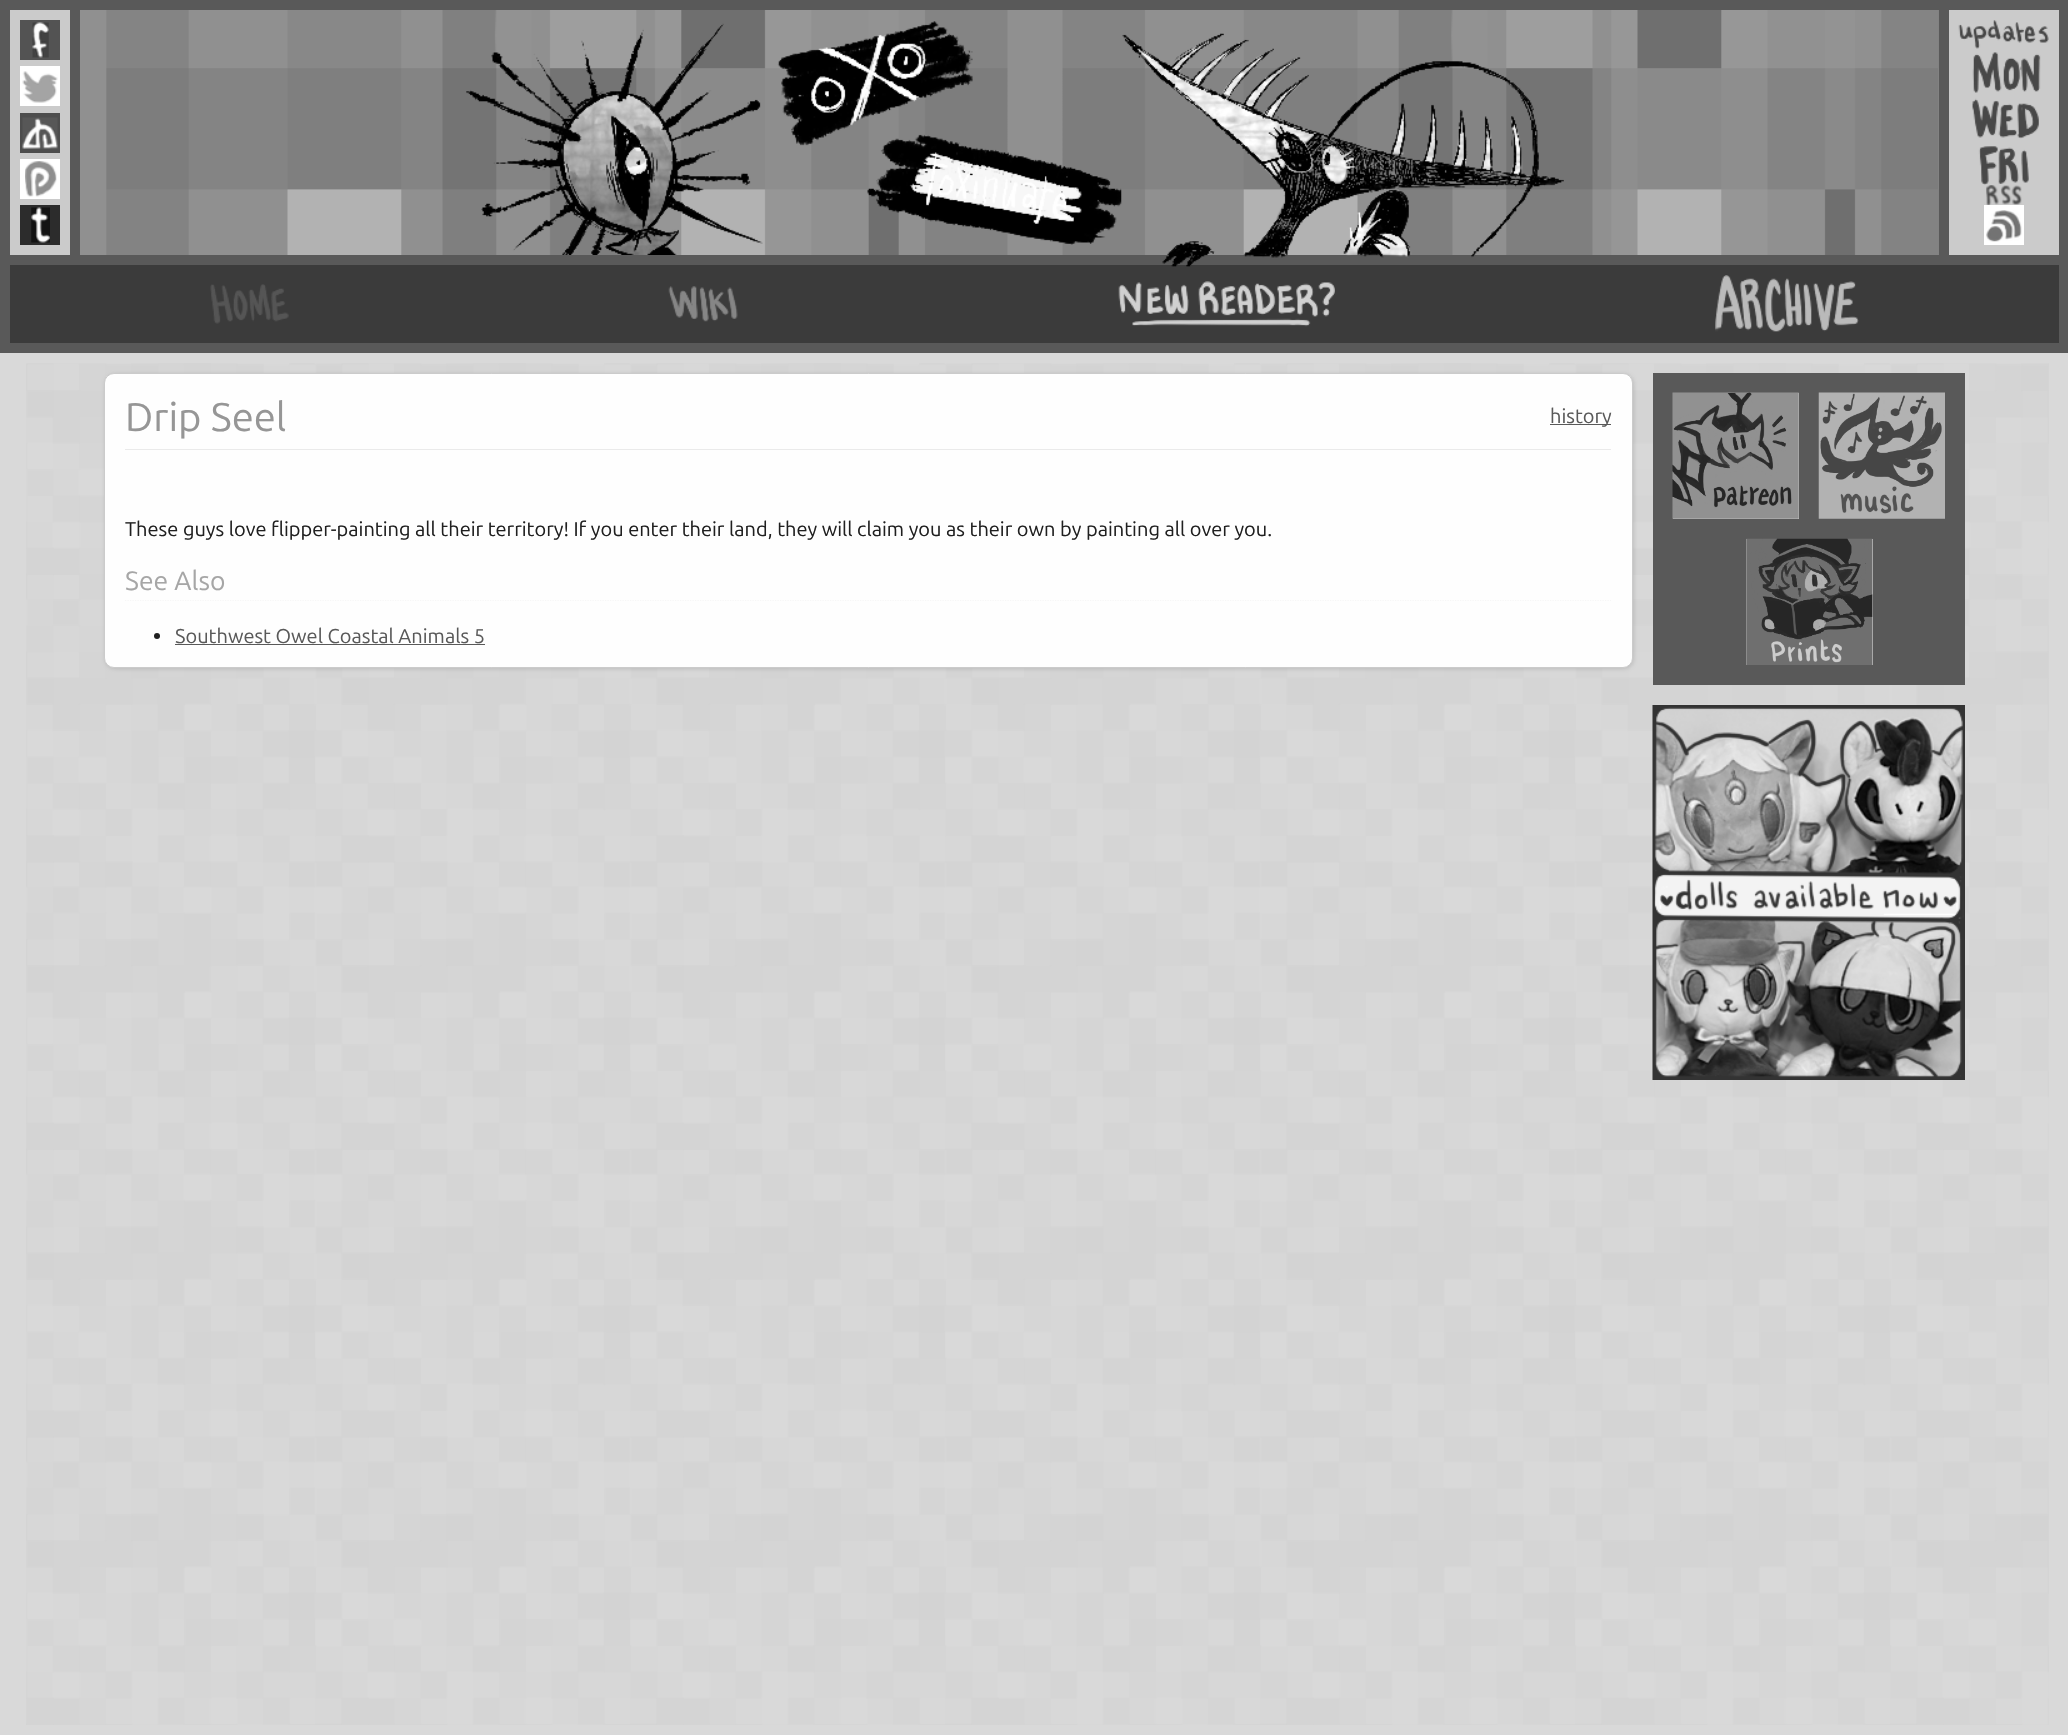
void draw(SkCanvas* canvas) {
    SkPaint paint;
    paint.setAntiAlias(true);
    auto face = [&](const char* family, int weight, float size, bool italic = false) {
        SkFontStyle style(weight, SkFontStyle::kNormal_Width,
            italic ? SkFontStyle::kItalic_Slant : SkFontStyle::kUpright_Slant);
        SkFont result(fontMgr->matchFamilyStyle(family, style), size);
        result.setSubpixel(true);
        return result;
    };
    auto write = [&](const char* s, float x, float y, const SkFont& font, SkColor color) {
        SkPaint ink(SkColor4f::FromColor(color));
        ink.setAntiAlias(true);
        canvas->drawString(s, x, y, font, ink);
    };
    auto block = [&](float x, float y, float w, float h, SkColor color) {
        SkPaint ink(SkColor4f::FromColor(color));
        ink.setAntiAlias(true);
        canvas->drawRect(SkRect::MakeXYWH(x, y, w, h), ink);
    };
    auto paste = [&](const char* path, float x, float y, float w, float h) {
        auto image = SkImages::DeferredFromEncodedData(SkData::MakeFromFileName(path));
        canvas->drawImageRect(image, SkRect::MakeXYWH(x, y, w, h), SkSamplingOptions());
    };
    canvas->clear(SkColorSetRGB(217, 217, 217));
    paste("pic1.png", 26, 363, 2023, 1362);
    block(0, 0, 2068, 353, SkColorSetRGB(89, 89, 89));
    block(10, 10, 60, 245, SkColorSetRGB(203, 203, 203));
    block(20, 20, 40, 40, SkColorSetRGB(83, 83, 83));
    paste("pic2.png", 32, 22, 17, 36);
    block(20, 66, 40, 40, SK_ColorWHITE);
    paste("pic3.png", 22, 71, 36, 32);
    block(20, 113, 40, 40, SkColorSetRGB(77, 77, 77));
    paste("pic4.png", 22, 117, 36, 32);
    block(20, 159, 40, 40, SK_ColorWHITE);
    paste("pic5.png", 25, 161, 32, 36);
    block(20, 205, 40, 40, SkColorSetRGB(44, 44, 44));
    paste("pic6.png", 31, 207, 19, 36);
    block(1938, 10, 1, 245, SkColorSetRGB(130, 130, 130));
    paste("pic7.png", 80, 10, 1858, 245);
    paste("pic8.png", 466, 23, 297, 232);
    paste("pic9.png", 777, 21, 345, 224);
    block(10, 265, 2049, 78, SkColorSetRGB(59, 59, 59));
    paste("pic10.png", 1122, 33, 442, 234);
    block(1949, 10, 110, 245, SkColorSetRGB(203, 203, 203));
    paste("pic11.png", 1958, 20, 91, 165);
    paste("pic12.png", 1986, 185, 36, 20);
    block(1984, 205, 40, 40, SK_ColorWHITE);
    paste("pic13.png", 1986, 210, 36, 32);
    paste("pic14.png", 210, 284, 79, 40);
    paste("pic15.png", 668, 286, 70, 36);
    paste("pic16.png", 1118, 281, 217, 46);
    paste("pic17.png", 1715, 275, 144, 57);
    paint.setColor(SkColorSetARGB(77, 128, 128, 128));
    paint.setMaskFilter(SkMaskFilter::MakeBlur(kNormal_SkBlurStyle, 2));
    canvas->drawRoundRect(SkRect::MakeXYWH(105, 374, 1529, 295), 10, 10, paint);
    paint.setMaskFilter(nullptr);
    paint.setColor(SkColorSetRGB(254, 254, 254));
    canvas->drawRoundRect(SkRect::MakeXYWH(104.5f, 373.5f, 1528, 294), 9.5f, 9.5f, paint);
    paint.setStyle(SkPaint::kStroke_Style);
    paint.setStrokeWidth(1);
    paint.setColor(SkColorSetRGB(203, 203, 203));
    canvas->drawRoundRect(SkRect::MakeXYWH(104.5f, 373.5f, 1528, 294), 9.5f, 9.5f, paint);
    block(125, 449, 1486, 1, SkColorSetRGB(234, 234, 234));
    auto kFont1 = face("Ubuntu", 400, 40);
    write("Drip Seel", 125, 431, kFont1, SkColorSetRGB(150, 150, 150));
    block(1550, 424, 61, 1, SkColorSetRGB(89, 89, 89));
    auto kFont2 = face("Ubuntu", 400, 20);
    write("history", 1550, 423, kFont2, SkColorSetRGB(89, 89, 89));
    write("These guys love flipper-painting all their territory! If you enter their land, they will claim you as their own by painting all over you.", 125, 536, kFont2, SkColorSetRGB(32, 32, 32));
    paint.setStrokeWidth(1.2f);
    paint.setColor(SkColorSetRGB(246, 246, 246));
    paint.setPathEffect(SkDashPathEffect::Make({{1.25f, 1.25f}}, 0));
    canvas->drawPath(SkPathBuilder().moveTo(125, 600.5f).lineTo(1611, 600.5f).detach(), paint);
    paint.setPathEffect(nullptr);
    auto kFont3 = face("Ubuntu", 400, 26.5f);
    write("See Also", 125, 590, kFont3, SkColorSetRGB(166, 166, 166));
    paint.setStyle(SkPaint::kFill_Style);
    paint.setColor(SkColorSetRGB(32, 32, 32));
    canvas->drawCircle(157, 636, 3, paint);
    write("Southwest Owel Coastal Animals 5", 175, 643, kFont2, SkColorSetRGB(89, 89, 89));
    block(175, 644, 310, 1, SkColorSetRGB(89, 89, 89));
    block(1653, 373, 312, 312, SkColorSetRGB(89, 89, 89));
    block(1673, 393, 126, 126, SkColorSetRGB(229, 229, 229));
    paste("pic18.png", 1672, 392, 127, 127);
    paste("pic19.png", 1818, 392, 127, 127);
    block(1746, 539, 127, 126, SkColorSetRGB(229, 229, 229));
    paste("pic20.png", 1746, 538, 127, 127);
    paste("pic21.png", 1652, 705, 313, 375);
}
